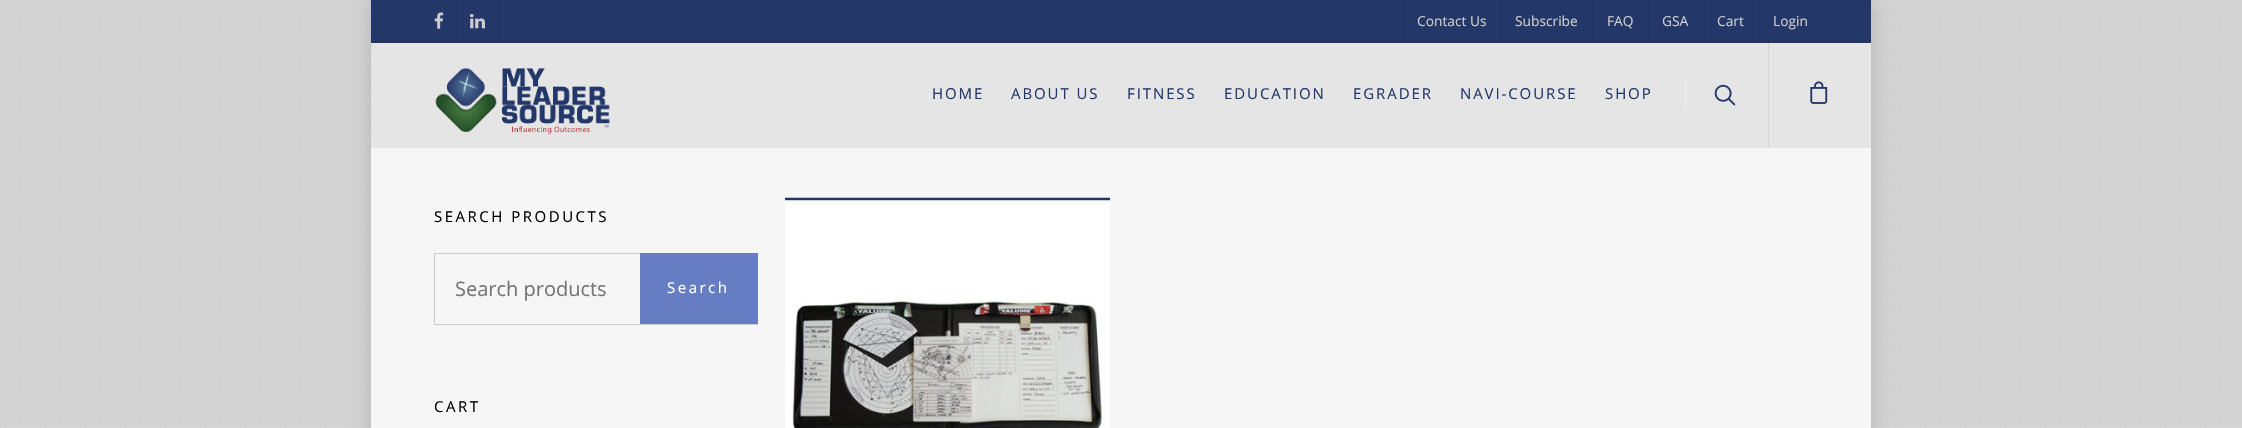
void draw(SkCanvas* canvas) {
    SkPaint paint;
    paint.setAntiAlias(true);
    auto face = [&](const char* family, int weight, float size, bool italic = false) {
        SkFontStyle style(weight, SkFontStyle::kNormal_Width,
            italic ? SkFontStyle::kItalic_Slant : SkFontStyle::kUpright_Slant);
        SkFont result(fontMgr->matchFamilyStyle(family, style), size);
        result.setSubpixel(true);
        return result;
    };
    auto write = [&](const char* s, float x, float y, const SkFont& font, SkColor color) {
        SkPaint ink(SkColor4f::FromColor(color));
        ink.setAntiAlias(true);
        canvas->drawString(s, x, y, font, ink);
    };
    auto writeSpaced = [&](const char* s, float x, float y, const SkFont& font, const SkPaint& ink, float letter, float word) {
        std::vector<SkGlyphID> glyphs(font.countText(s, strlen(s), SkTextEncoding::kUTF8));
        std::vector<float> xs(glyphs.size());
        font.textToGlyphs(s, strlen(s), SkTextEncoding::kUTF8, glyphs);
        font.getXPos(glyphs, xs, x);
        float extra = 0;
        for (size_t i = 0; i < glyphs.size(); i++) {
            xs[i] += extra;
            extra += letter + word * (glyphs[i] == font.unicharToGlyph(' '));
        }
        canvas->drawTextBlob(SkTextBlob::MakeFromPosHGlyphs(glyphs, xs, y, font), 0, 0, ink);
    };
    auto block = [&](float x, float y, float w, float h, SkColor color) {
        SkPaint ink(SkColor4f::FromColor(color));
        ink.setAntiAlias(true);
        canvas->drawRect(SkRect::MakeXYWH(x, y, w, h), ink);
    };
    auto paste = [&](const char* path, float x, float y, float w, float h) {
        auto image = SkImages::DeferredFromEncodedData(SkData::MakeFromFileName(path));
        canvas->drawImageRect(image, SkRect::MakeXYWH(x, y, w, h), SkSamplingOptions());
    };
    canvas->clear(SkColorSetRGB(216, 216, 216));
    paste("pic1.png", 0, 0, 2242, 427);
    paint.setColor(SkColorSetARGB(38, 0, 0, 0));
    paint.setMaskFilter(SkMaskFilter::MakeBlur(kNormal_SkBlurStyle, 9.5f));
    canvas->drawRect(SkRect::MakeXYWH(371, 0, 1500, 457), paint);
    paint.setMaskFilter(nullptr);
    block(371, 0, 1500, 43, SkColorSetRGB(35, 55, 105));
    block(371, 41, 1500, 1, SkColorSetRGB(32, 50, 95));
    paste("pic2.png", 434, 12, 10, 17);
    block(498, 0, 1, 40, SkColorSetRGB(32, 50, 95));
    block(456, 0, 1, 40, SkColorSetRGB(32, 50, 95));
    paste("pic3.png", 470, 14, 15, 15);
    block(1404, 0, 1, 41, SkColorSetRGB(32, 50, 95));
    auto kFont1 = face("Open Sans", 400, 13.75f);
    write("Contact Us", 1417, 26, kFont1, SkColorSetRGB(204, 204, 204));
    block(1501, 0, 1, 41, SkColorSetRGB(32, 50, 95));
    write("Subscribe", 1515, 26, kFont1, SkColorSetRGB(204, 204, 204));
    block(1593, 0, 1, 41, SkColorSetRGB(32, 50, 95));
    write("FAQ", 1607, 26, kFont1, SkColorSetRGB(204, 204, 204));
    block(1649, 0, 1, 41, SkColorSetRGB(32, 50, 95));
    write("GSA", 1662, 26, kFont1, SkColorSetRGB(204, 204, 204));
    block(1704, 0, 1, 41, SkColorSetRGB(32, 50, 95));
    write("Cart", 1717, 26, kFont1, SkColorSetRGB(204, 204, 204));
    block(1759, 0, 1, 41, SkColorSetRGB(32, 50, 95));
    write("Login", 1773, 26, kFont1, SkColorSetRGB(204, 204, 204));
    block(371, 43, 1500, 105, SkColorSetRGB(229, 229, 229));
    paste("pic4.png", 435, 68, 175, 66);
    auto kFont2 = face("Open Sans", 400, 15);
    paint.setColor(SkColorSetRGB(35, 55, 105));
    writeSpaced("HOME", 932, 99, kFont2, paint, 1.9f, 0);
    writeSpaced("ABOUT US", 1011, 99, kFont2, paint, 1.9f, 0);
    writeSpaced("FITNESS", 1127, 99, kFont2, paint, 1.9f, 0);
    writeSpaced("EDUCATION", 1224, 99, kFont2, paint, 1.9f, 0);
    writeSpaced("EGRADER", 1353, 99, kFont2, paint, 1.9f, 0);
    writeSpaced("NAVI-COURSE", 1460, 99, kFont2, paint, 1.9f, 0);
    writeSpaced("SHOP", 1605, 99, kFont2, paint, 1.9f, 0);
    block(1685, 80, 1, 30, SkColorSetRGB(238, 238, 238));
    paste("pic5.png", 1714, 84, 22, 22);
    block(1768, 43, 1, 105, SkColorSetRGB(213, 213, 213));
    paste("pic6.png", 1810, 81, 18, 23);
    block(371, 148, 1500, 280, SkColorSetRGB(246, 246, 246));
    paint.setColor(SK_ColorBLACK);
    writeSpaced("SEARCH PRODUCTS", 434, 222, kFont2, paint, 2.5f, 0);
    paint.setStyle(SkPaint::kStroke_Style);
    paint.setStrokeWidth(1);
    paint.setColor(SkColorSetRGB(204, 204, 204));
    canvas->drawRect(SkRect::MakeXYWH(434.5f, 253.5f, 323, 71), paint);
    auto kFont3 = face("Open Sans", 400, 20);
    write("Search products", 455, 296, kFont3, SkColorSetRGB(117, 117, 117));
    block(640, 253, 118, 71, SkColorSetRGB(102, 125, 196));
    paint.setStyle(SkPaint::kFill_Style);
    paint.setColor(SK_ColorWHITE);
    writeSpaced("Search", 667, 293, kFont2, paint, 2.5f, 0);
    paint.setColor(SK_ColorBLACK);
    writeSpaced("CART", 434, 412, kFont2, paint, 2.5f, 0);
    paste("pic7.png", 785, 197, 325, 231);
}
